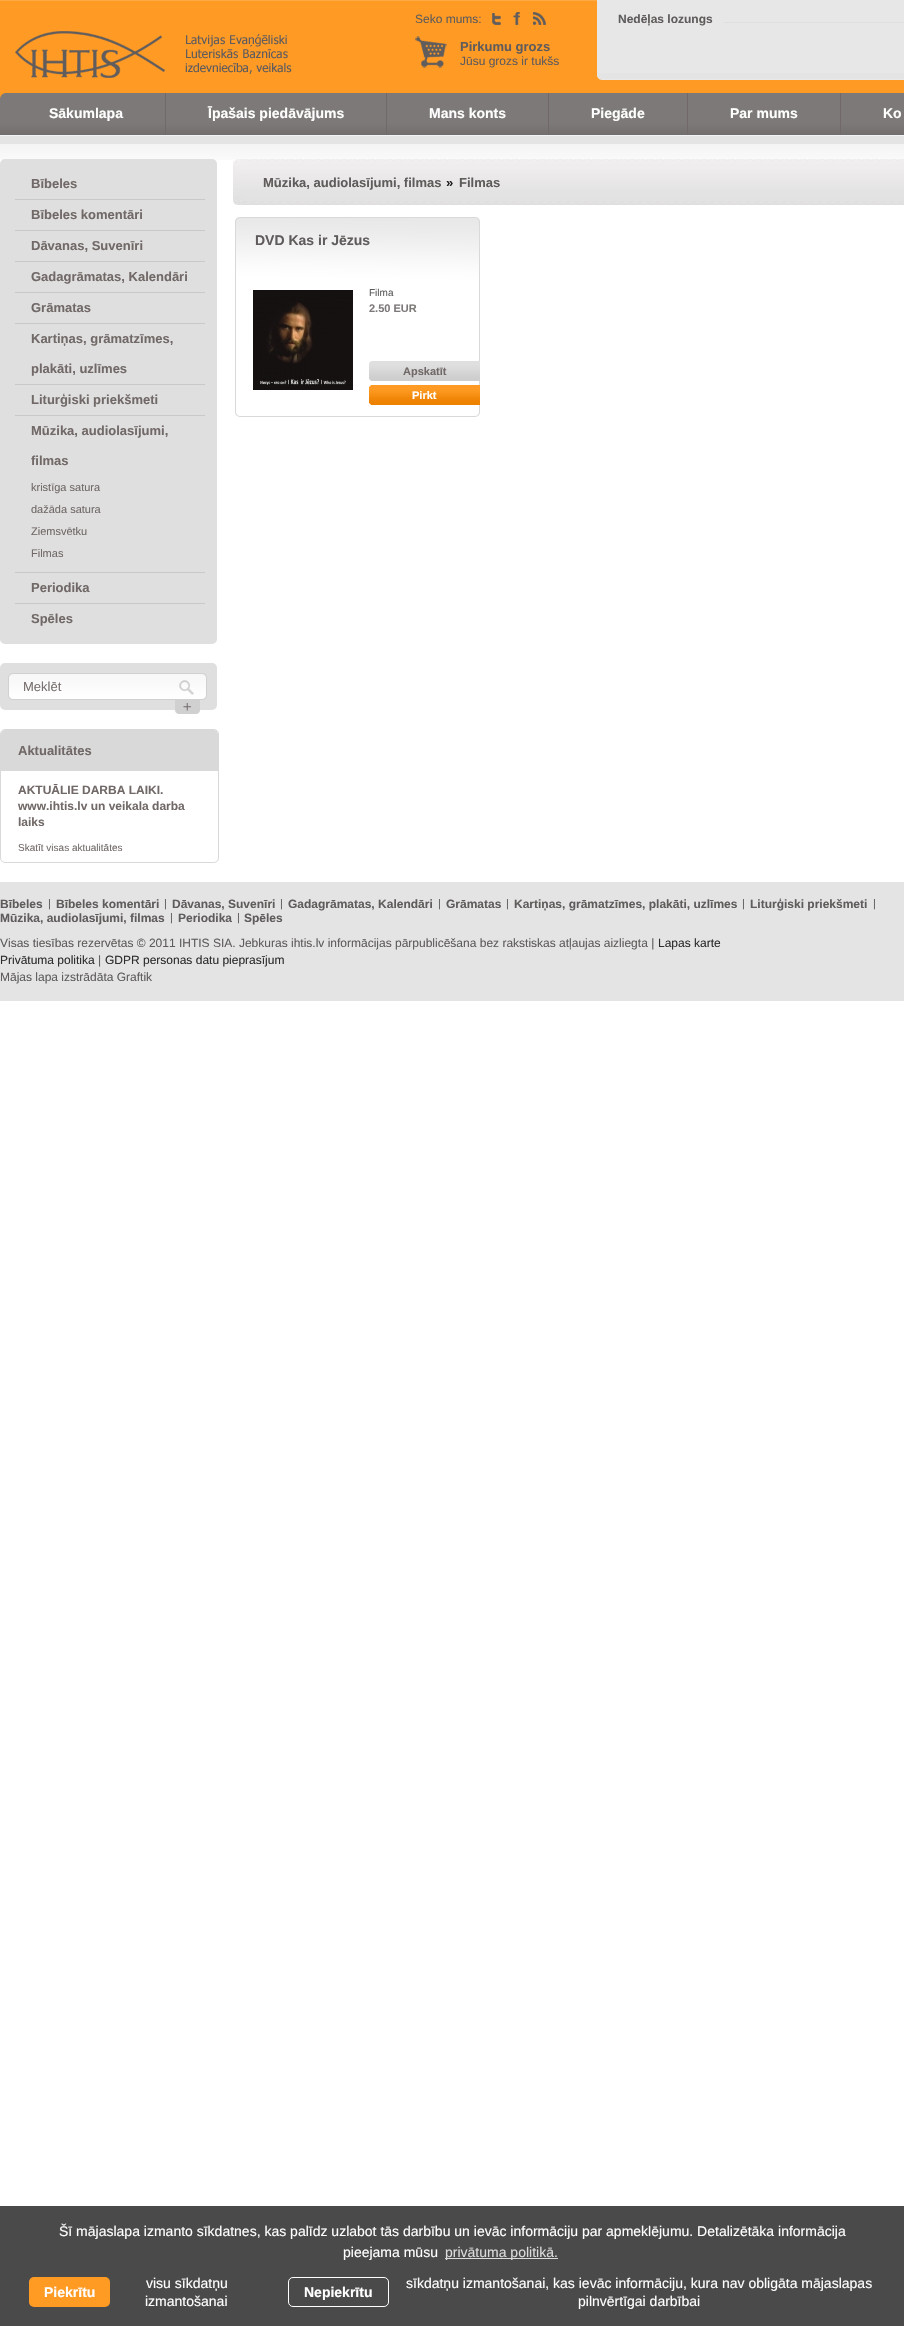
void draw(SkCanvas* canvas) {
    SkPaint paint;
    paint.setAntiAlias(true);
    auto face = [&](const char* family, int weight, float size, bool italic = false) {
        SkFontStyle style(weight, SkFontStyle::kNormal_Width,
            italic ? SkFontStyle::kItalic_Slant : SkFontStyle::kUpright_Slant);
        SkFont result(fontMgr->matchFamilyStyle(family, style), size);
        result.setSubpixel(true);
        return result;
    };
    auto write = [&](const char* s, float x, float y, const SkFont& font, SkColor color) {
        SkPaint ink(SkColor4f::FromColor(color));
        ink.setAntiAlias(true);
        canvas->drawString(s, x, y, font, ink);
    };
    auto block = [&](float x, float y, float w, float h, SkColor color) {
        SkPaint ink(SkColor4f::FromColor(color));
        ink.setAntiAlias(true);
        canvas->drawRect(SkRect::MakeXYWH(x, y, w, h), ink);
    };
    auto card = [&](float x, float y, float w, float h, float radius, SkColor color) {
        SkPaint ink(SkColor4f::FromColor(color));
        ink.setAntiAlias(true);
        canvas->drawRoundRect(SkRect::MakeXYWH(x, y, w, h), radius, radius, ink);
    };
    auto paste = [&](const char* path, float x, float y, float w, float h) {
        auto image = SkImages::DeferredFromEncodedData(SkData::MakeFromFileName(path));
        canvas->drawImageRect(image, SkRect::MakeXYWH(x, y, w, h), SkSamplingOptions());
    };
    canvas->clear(SK_ColorWHITE);
    paste("pic1.png", 0, 0, 904, 160);
    paste("pic2.png", 15, 31, 277, 47);
    auto kFont1 = face("Liberation Sans", 400, 12);
    write("Seko mums:", 415, 23, kFont1, SkColorSetRGB(95, 92, 91));
    paste("pic3.png", 492, 13, 9, 12);
    paste("pic4.png", 513, 12, 7, 13);
    paste("pic5.png", 533, 12, 13, 13);
    block(597, 0, 307, 73, SkColorSetRGB(231, 231, 231));
    paste("pic6.png", 597, 73, 307, 7);
    block(724, 22, 180, 1, SkColorSetRGB(223, 223, 223));
    auto kFont2 = face("Liberation Sans", 700, 12);
    write("Nedēļas lozungs", 618, 23, kFont2, SkColorSetRGB(95, 92, 91));
    paste("pic7.png", 415, 36, 32, 32);
    auto kFont3 = face("Liberation Sans", 700, 13);
    write("Pirkumu grozs", 460, 51, kFont3, SkColorSetRGB(95, 92, 91));
    write("Jūsu grozs ir tukšs", 460, 65, kFont1, SkColorSetRGB(95, 92, 91));
    paste("pic8.png", 0, 93, 904, 42);
    paste("pic9.png", 0, 93, 5, 5);
    block(165, 93, 1, 42, SkColorSetRGB(113, 105, 103));
    auto kFont4 = face("Liberation Sans", 700, 14);
    write("Sākumlapa", 49, 118, kFont4, SK_ColorWHITE);
    block(386, 93, 1, 42, SkColorSetRGB(113, 105, 103));
    write("Īpašais piedāvājums", 208, 118, kFont4, SK_ColorWHITE);
    block(548, 93, 1, 42, SkColorSetRGB(113, 105, 103));
    write("Mans konts", 429, 118, kFont4, SK_ColorWHITE);
    block(687, 93, 1, 42, SkColorSetRGB(113, 105, 103));
    write("Piegāde", 591, 118, kFont4, SK_ColorWHITE);
    block(840, 93, 1, 42, SkColorSetRGB(113, 105, 103));
    write("Par mums", 730, 118, kFont4, SK_ColorWHITE);
    write("Ko", 883, 118, kFont4, SK_ColorWHITE);
    card(0, 159, 217, 485, 5, SkColorSetRGB(223, 223, 223));
    block(15, 199, 190, 1, SkColorSetRGB(201, 201, 201));
    write("Bībeles", 31, 188, kFont3, SkColorSetRGB(113, 105, 103));
    block(15, 230, 190, 1, SkColorSetRGB(201, 201, 201));
    write("Bībeles komentāri", 31, 219, kFont3, SkColorSetRGB(113, 105, 103));
    block(15, 261, 190, 1, SkColorSetRGB(201, 201, 201));
    write("Dāvanas, Suvenīri", 31, 250, kFont3, SkColorSetRGB(113, 105, 103));
    block(15, 292, 190, 1, SkColorSetRGB(201, 201, 201));
    write("Gadagrāmatas, Kalendāri", 31, 281, kFont3, SkColorSetRGB(113, 105, 103));
    block(15, 323, 190, 1, SkColorSetRGB(201, 201, 201));
    write("Grāmatas", 31, 312, kFont3, SkColorSetRGB(113, 105, 103));
    block(15, 384, 190, 1, SkColorSetRGB(201, 201, 201));
    write("Kartiņas, grāmatzīmes,", 31, 343, kFont3, SkColorSetRGB(113, 105, 103));
    write("plakāti, uzlīmes", 31, 373, kFont3, SkColorSetRGB(113, 105, 103));
    block(15, 415, 190, 1, SkColorSetRGB(201, 201, 201));
    write("Liturģiski priekšmeti", 31, 404, kFont3, SkColorSetRGB(113, 105, 103));
    block(15, 572, 190, 1, SkColorSetRGB(201, 201, 201));
    write("Mūzika, audiolasījumi,", 31, 435, kFont3, SkColorSetRGB(113, 105, 103));
    write("filmas", 31, 465, kFont3, SkColorSetRGB(113, 105, 103));
    auto kFont5 = face("Liberation Sans", 400, 11);
    write("kristīga satura", 31, 491, kFont5, SkColorSetRGB(113, 105, 103));
    write("dažāda satura", 31, 513, kFont5, SkColorSetRGB(113, 105, 103));
    write("Ziemsvētku", 31, 535, kFont5, SkColorSetRGB(113, 105, 103));
    write("Filmas", 31, 557, kFont5, SkColorSetRGB(113, 105, 103));
    block(15, 603, 190, 1, SkColorSetRGB(201, 201, 201));
    write("Periodika", 31, 592, kFont3, SkColorSetRGB(113, 105, 103));
    write("Spēles", 31, 623, kFont3, SkColorSetRGB(113, 105, 103));
    card(0, 663, 217, 47, 5, SkColorSetRGB(223, 223, 223));
    paste("pic10.png", 8, 673, 199, 27);
    auto kFont6 = face("Liberation Sans", 400, 13);
    write("Meklēt", 23, 691, kFont6, SkColorSetRGB(120, 112, 111));
    paste("pic11.png", 179, 680, 15, 15);
    paste("pic12.png", 175, 700, 25, 14);
    paint.setStyle(SkPaint::kStroke_Style);
    paint.setStrokeWidth(1);
    paint.setColor(SkColorSetRGB(217, 217, 217));
    canvas->drawRoundRect(SkRect::MakeXYWH(0.5f, 729.5f, 218, 133), 4.5f, 4.5f, paint);
    paint.setStyle(SkPaint::kFill_Style);
    canvas->drawPath(SkPathBuilder().moveTo(5, 730).lineTo(214, 730).cubicTo(216, 730, 218, 732, 218, 734).lineTo(218, 771).lineTo(1, 771).lineTo(1, 734).cubicTo(1, 732, 3, 730, 5, 730).close().detach(), paint);
    write("Aktualitātes", 18, 755, kFont3, SkColorSetRGB(113, 105, 103));
    write("AKTUĀLIE DARBA LAIKI.", 18, 794, kFont2, SkColorSetRGB(113, 105, 103));
    write("www.ihtis.lv un veikala darba", 18, 810, kFont2, SkColorSetRGB(113, 105, 103));
    write("laiks", 18, 826, kFont2, SkColorSetRGB(113, 105, 103));
    auto kFont7 = face("Liberation Sans", 400, 10);
    write("Skatīt visas aktualitātes", 18, 851, kFont7, SkColorSetRGB(113, 105, 103));
    paste("pic13.png", 241, 159, 663, 46);
    paste("pic14.png", 233, 159, 8, 46);
    write("Mūzika, audiolasījumi, filmas", 263, 187, kFont3, SkColorSetRGB(95, 92, 91));
    write("»", 446, 187, kFont3, SkColorSetRGB(32, 32, 32));
    write("Filmas", 459, 187, kFont3, SkColorSetRGB(95, 92, 91));
    paste("pic15.png", 235, 217, 245, 200);
    write("DVD Kas ir Jēzus", 255, 245, kFont4, SkColorSetRGB(95, 92, 91));
    paste("pic16.png", 253, 290, 100, 100);
    write("Filma", 369, 296, kFont7, SkColorSetRGB(95, 92, 91));
    auto kFont8 = face("Liberation Sans", 700, 11);
    write("2.50 EUR", 369, 312, kFont8, SkColorSetRGB(125, 121, 120));
    paste("pic17.png", 369, 361, 111, 20);
    write("Apskatīt", 403, 375, kFont8, SkColorSetRGB(113, 105, 103));
    paste("pic18.png", 369, 385, 111, 20);
    write("Pirkt", 412, 399, kFont8, SK_ColorWHITE);
    block(0, 882, 904, 119, SkColorSetRGB(228, 228, 228));
    write("Bībeles", 0, 908, kFont2, SkColorSetRGB(95, 92, 91));
    write("|", 48, 907, kFont5, SkColorSetRGB(95, 92, 91));
    write("Bībeles komentāri", 56, 908, kFont2, SkColorSetRGB(95, 92, 91));
    write("|", 164, 907, kFont5, SkColorSetRGB(95, 92, 91));
    write("Dāvanas, Suvenīri", 172, 908, kFont2, SkColorSetRGB(95, 92, 91));
    write("|", 280, 907, kFont5, SkColorSetRGB(95, 92, 91));
    write("Gadagrāmatas, Kalendāri", 288, 908, kFont2, SkColorSetRGB(95, 92, 91));
    write("|", 438, 907, kFont5, SkColorSetRGB(95, 92, 91));
    write("Grāmatas", 446, 908, kFont2, SkColorSetRGB(95, 92, 91));
    write("|", 506, 907, kFont5, SkColorSetRGB(95, 92, 91));
    write("Kartiņas, grāmatzīmes, plakāti, uzlīmes", 514, 908, kFont2, SkColorSetRGB(95, 92, 91));
    write("|", 742, 907, kFont5, SkColorSetRGB(95, 92, 91));
    write("Liturģiski priekšmeti", 750, 908, kFont2, SkColorSetRGB(95, 92, 91));
    write("|", 873, 907, kFont5, SkColorSetRGB(95, 92, 91));
    write("Mūzika, audiolasījumi, filmas", 0, 922, kFont2, SkColorSetRGB(95, 92, 91));
    write("|", 170, 921, kFont5, SkColorSetRGB(95, 92, 91));
    write("Periodika", 178, 922, kFont2, SkColorSetRGB(95, 92, 91));
    write("|", 237, 921, kFont5, SkColorSetRGB(95, 92, 91));
    write("Spēles", 244, 922, kFont2, SkColorSetRGB(95, 92, 91));
    write("Visas tiesības rezervētas © 2011 IHTIS SIA. Jebkuras ihtis.lv informācijas pārpublicēšana bez rakstiskas atļaujas aizliegta |", 0, 947, kFont1, SkColorSetRGB(95, 92, 91));
    write("Lapas karte", 658, 947, kFont1, SkColorSetRGB(45, 45, 45));
    write("Privātuma politika", 0, 964, kFont1, SkColorSetRGB(45, 45, 45));
    write("|", 98, 964, kFont1, SkColorSetRGB(95, 92, 91));
    write("GDPR personas datu pieprasījum", 105, 964, kFont1, SkColorSetRGB(45, 45, 45));
    write("Mājas lapa izstrādāta Graftik", 0, 981, kFont1, SkColorSetRGB(95, 92, 91));
    block(0, 2206, 904, 120, SkColorSetRGB(74, 74, 74));
    auto kFont9 = face("Liberation Sans", 400, 14);
    write("Šī mājaslapa izmanto sīkdatnes, kas palīdz uzlabot tās darbību un ievāc informāciju par apmeklējumu. Detalizētāka informācija", 59, 2236, kFont9, SK_ColorWHITE);
    write("pieejama mūsu", 343, 2257, kFont9, SK_ColorWHITE);
    block(445, 2258, 113, 1, SkColorSetRGB(219, 219, 219));
    write("privātuma politikā.", 445, 2257, kFont9, SkColorSetRGB(219, 219, 219));
    card(29, 2277, 81, 30, 5, SkColorSetRGB(255, 154, 35));
    write("Piekrītu", 44, 2297, kFont4, SK_ColorWHITE);
    write("visu sīkdatņu", 146, 2288, kFont9, SK_ColorWHITE);
    write("izmantošanai", 145, 2306, kFont9, SK_ColorWHITE);
    paint.setStyle(SkPaint::kStroke_Style);
    paint.setColor(SK_ColorWHITE);
    canvas->drawRoundRect(SkRect::MakeXYWH(288.5f, 2277.5f, 100, 29), 4.5f, 4.5f, paint);
    write("Nepiekrītu", 304, 2297, kFont4, SK_ColorWHITE);
    write("sīkdatņu izmantošanai, kas ievāc informāciju, kura nav obligāta mājaslapas", 406, 2288, kFont9, SK_ColorWHITE);
    write("pilnvērtīgai darbībai", 578, 2306, kFont9, SK_ColorWHITE);
}
